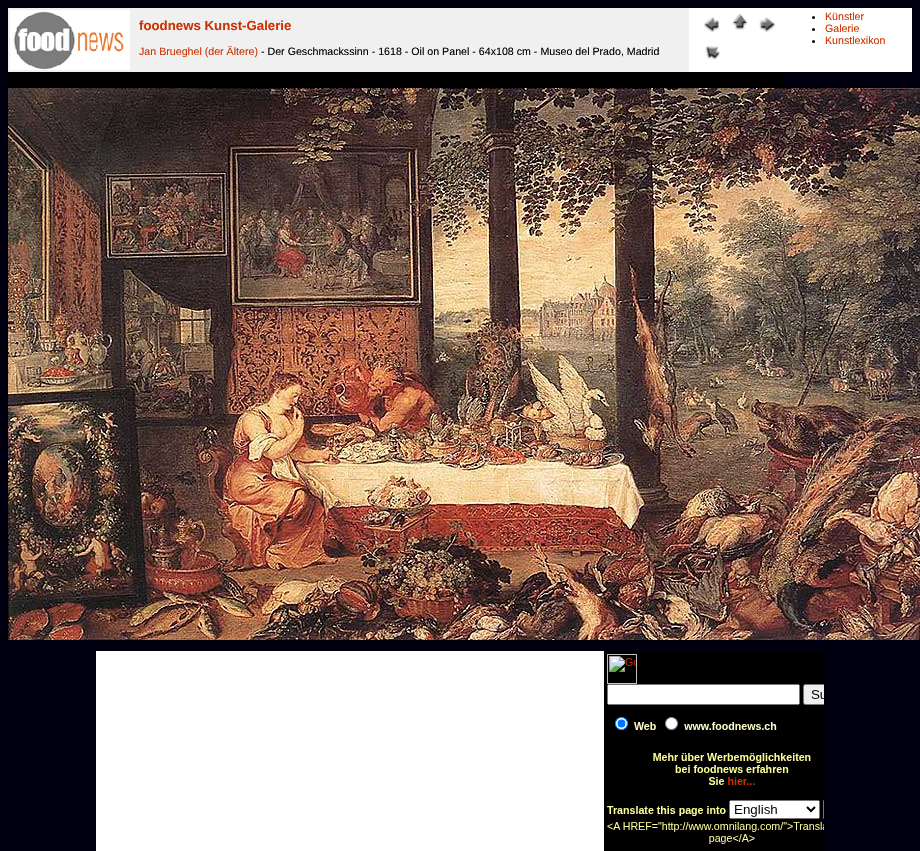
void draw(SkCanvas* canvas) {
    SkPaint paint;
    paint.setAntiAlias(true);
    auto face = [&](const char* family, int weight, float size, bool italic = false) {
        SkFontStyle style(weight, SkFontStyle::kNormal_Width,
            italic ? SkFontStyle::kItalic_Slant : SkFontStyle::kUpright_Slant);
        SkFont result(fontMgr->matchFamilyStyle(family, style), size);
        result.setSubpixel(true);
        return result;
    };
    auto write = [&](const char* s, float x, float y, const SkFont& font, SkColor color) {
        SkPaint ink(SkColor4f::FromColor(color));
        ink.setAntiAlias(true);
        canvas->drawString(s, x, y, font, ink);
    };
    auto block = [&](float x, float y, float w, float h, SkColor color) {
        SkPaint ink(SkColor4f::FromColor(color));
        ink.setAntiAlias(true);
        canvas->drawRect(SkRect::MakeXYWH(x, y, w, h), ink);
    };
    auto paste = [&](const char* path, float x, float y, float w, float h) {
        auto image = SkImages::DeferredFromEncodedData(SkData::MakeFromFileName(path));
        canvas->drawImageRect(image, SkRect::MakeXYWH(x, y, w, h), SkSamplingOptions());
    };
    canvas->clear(SkColorSetRGB(0, 0, 17));
    block(8, 8, 129, 64, SkColorSetRGB(240, 240, 240));
    paste("pic1.png", 10, 10, 120, 60);
    block(689, 8, 223, 64, SK_ColorWHITE);
    paste("pic2.png", 703, 17, 17, 16);
    paste("pic3.png", 732, 13, 16, 17);
    paste("pic4.png", 759, 17, 17, 16);
    paste("pic5.png", 705, 46, 15, 14);
    block(137, 8, 552, 64, SkColorSetRGB(240, 240, 240));
    auto kFont1 = face("Liberation Sans", 700, 13.25f);
    write("foodnews Kunst-Galerie", 139, 30, kFont1, SkColorSetRGB(204, 51, 0));
    paint.setColor(SK_ColorBLACK);
    canvas->drawCircle(813.5f, 17.5f, 1.5f, paint);
    auto kFont2 = face("Liberation Sans", 400, 10.65f);
    write("Künstler", 825, 20, kFont2, SkColorSetRGB(204, 51, 0));
    canvas->drawCircle(813.5f, 29.5f, 1.5f, paint);
    write("Galerie", 825, 32, kFont2, SkColorSetRGB(204, 51, 0));
    canvas->drawCircle(813.5f, 41.5f, 1.5f, paint);
    write("Kunstlexikon", 825, 44, kFont2, SkColorSetRGB(204, 51, 0));
    write("Jan Brueghel (der Ältere)", 139, 55, kFont2, SkColorSetRGB(204, 51, 0));
    write("- Der Geschmackssinn - 1618 - Oil on Panel - 64x108 cm - Museo del Prado, Madrid", 261, 55, kFont2, SK_ColorBLACK);
    block(8, 72, 775, 16, SK_ColorBLACK);
    paste("pic6.png", 8, 88, 912, 552);
    block(96, 651, 508, 200, SK_ColorWHITE);
    paste("pic7.png", 604, 651, 220, 200);
}
